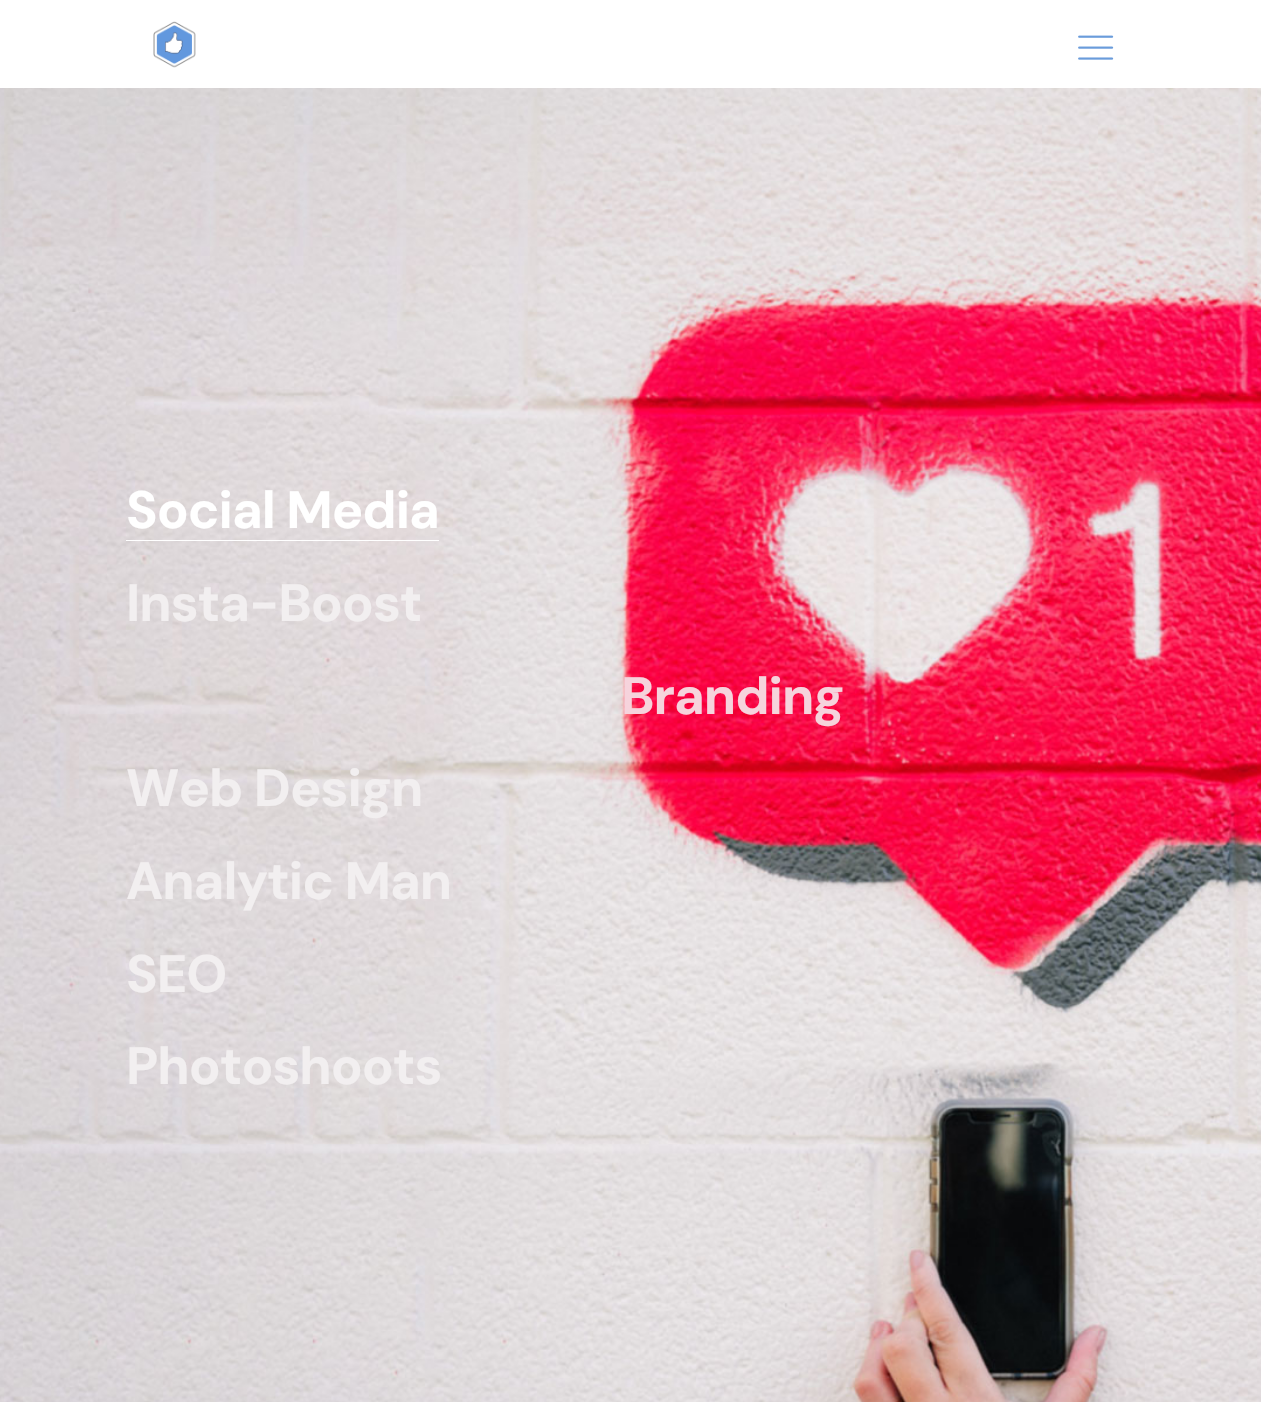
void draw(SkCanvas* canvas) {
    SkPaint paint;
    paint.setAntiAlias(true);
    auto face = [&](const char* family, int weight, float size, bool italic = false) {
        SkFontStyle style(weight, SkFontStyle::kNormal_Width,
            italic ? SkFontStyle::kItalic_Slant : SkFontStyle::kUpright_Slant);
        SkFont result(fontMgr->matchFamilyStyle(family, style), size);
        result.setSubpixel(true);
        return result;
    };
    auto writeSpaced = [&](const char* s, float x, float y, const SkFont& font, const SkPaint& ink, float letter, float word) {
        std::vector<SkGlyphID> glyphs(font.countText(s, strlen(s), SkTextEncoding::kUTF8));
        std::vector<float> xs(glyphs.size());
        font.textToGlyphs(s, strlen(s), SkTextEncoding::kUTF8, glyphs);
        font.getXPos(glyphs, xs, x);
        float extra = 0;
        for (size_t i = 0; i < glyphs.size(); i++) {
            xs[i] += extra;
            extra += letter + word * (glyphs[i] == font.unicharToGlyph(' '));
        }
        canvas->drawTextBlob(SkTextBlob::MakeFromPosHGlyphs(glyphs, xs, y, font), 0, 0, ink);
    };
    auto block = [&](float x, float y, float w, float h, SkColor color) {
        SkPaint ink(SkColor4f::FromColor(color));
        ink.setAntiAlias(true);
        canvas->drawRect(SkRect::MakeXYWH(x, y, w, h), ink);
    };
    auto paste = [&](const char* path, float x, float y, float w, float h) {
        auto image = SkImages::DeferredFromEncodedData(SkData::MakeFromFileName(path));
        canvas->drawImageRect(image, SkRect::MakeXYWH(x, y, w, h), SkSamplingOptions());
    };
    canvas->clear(SK_ColorWHITE);
    paste("pic1.png", 153, 21, 43, 47);
    paste("pic2.png", 1078, 35, 36, 25);
    paste("pic3.png", 0, 88, 1261, 1314);
    auto kFont1 = face("DM Sans", 700, 52.5f);
    paint.setColor(SK_ColorWHITE);
    writeSpaced("Social Media", 126, 528, kFont1, paint, -1, 0);
    block(126, 540, 313, 1, SK_ColorWHITE);
    paint.setColor(SkColorSetRGB(242, 239, 240));
    writeSpaced("Insta-Boost", 126, 621, kFont1, paint, -1, 0);
    paint.setColor(SkColorSetRGB(246, 211, 220));
    writeSpaced("Branding", 621, 714, kFont1, paint, -1, 0);
    paint.setColor(SkColorSetRGB(242, 239, 240));
    writeSpaced("Web Design", 126, 806, kFont1, paint, -1, 0);
    writeSpaced("Analytic Man", 126, 899, kFont1, paint, -1, 0);
    writeSpaced("SEO", 126, 992, kFont1, paint, -1, 0);
    writeSpaced("Photoshoots", 126, 1084, kFont1, paint, -1, 0);
}
